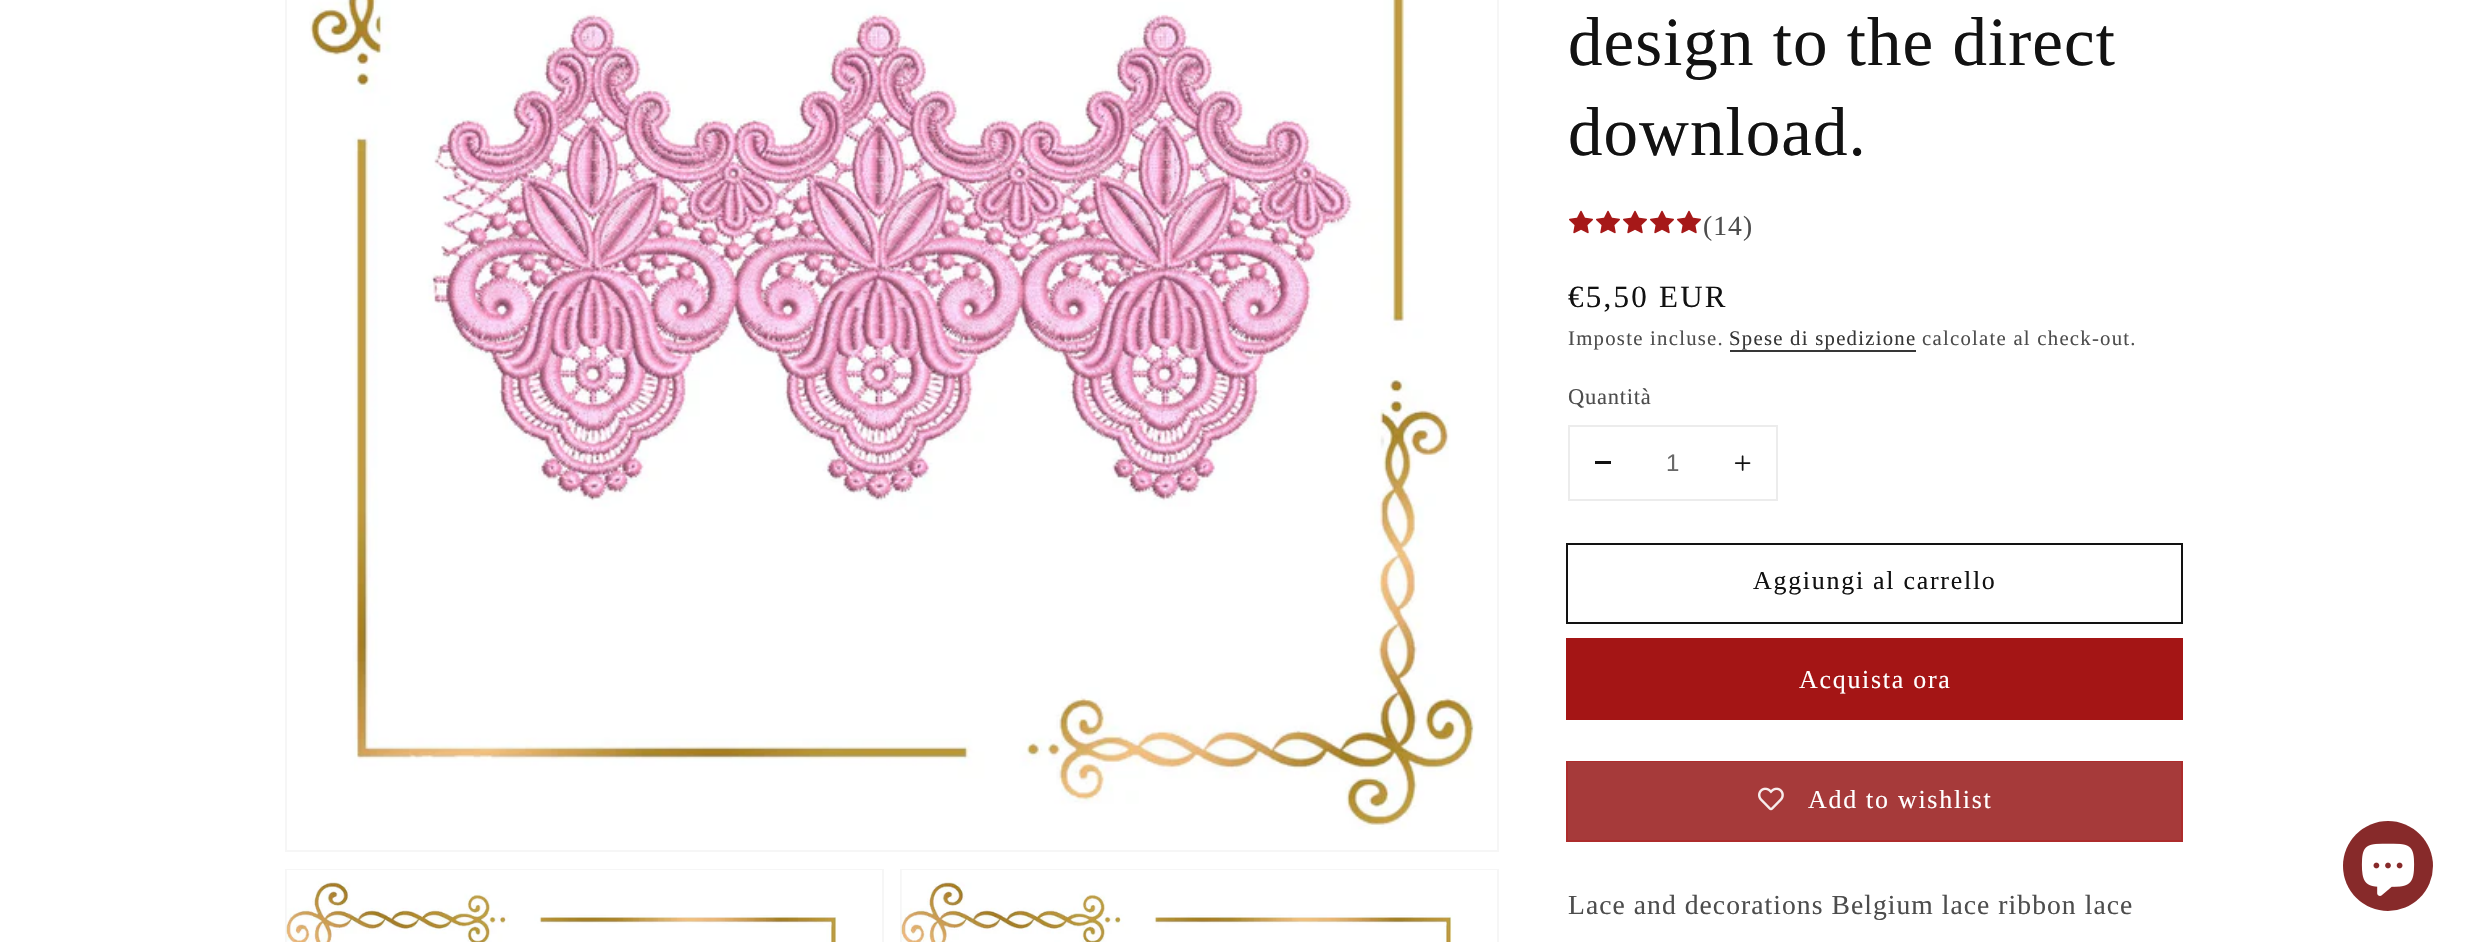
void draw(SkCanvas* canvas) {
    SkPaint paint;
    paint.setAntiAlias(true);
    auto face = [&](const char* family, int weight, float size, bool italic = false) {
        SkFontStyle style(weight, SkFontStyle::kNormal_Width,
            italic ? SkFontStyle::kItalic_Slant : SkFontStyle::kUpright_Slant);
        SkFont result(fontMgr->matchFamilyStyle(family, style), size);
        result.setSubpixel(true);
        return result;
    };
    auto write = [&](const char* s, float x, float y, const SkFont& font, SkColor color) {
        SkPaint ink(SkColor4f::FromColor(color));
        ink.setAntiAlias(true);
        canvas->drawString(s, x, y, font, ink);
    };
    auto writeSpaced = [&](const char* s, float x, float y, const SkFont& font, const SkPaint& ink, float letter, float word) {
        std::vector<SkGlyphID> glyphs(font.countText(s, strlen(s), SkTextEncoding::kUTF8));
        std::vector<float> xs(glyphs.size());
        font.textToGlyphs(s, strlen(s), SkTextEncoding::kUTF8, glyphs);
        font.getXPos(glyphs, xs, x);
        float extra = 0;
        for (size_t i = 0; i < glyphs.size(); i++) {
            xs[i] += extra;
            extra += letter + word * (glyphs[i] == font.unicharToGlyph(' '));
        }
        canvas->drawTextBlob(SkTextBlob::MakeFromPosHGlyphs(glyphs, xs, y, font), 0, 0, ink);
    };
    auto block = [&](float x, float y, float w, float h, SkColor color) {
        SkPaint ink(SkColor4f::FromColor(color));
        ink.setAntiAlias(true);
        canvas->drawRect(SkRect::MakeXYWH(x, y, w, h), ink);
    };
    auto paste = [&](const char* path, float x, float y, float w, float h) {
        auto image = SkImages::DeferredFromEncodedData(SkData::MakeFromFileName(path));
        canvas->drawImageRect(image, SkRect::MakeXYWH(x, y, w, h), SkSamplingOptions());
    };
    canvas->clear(SK_ColorWHITE);
    paint.setStyle(SkPaint::kStroke_Style);
    paint.setStrokeWidth(2);
    paint.setColor(SkColorSetRGB(246, 246, 246));
    canvas->drawRect(SkRect::MakeXYWH(286, -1, 1212, 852), paint);
    paste("pic1.png", 309, 0, 1166, 830);
    canvas->drawRect(SkRect::MakeXYWH(286, 870, 597, 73), paint);
    paste("pic2.png", 286, 870, 596, 72);
    canvas->drawRect(SkRect::MakeXYWH(901, 870, 597, 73), paint);
    paste("pic3.png", 901, 870, 596, 72);
    auto kFont1 = face("Liberation Serif", 400, 69);
    paint.setStyle(SkPaint::kFill_Style);
    paint.setColor(SkColorSetRGB(18, 18, 18));
    writeSpaced("design to the direct", 1568, 65, kFont1, paint, 1.05f, 0);
    writeSpaced("download.", 1568, 155, kFont1, paint, 1.05f, 0);
    paste("pic4.png", 1569, 210, 24, 24);
    paste("pic4.png", 1596, 210, 24, 24);
    paste("pic4.png", 1623, 210, 24, 24);
    paste("pic4.png", 1650, 210, 24, 24);
    paste("pic4.png", 1677, 210, 24, 24);
    auto kFont2 = face("Liberation Serif", 400, 27.6f);
    paint.setColor(SkColorSetRGB(77, 77, 77));
    writeSpaced("(14)", 1703, 235, kFont2, paint, 1.05f, 0);
    auto kFont3 = face("Liberation Serif", 400, 31);
    paint.setColor(SkColorSetRGB(18, 18, 18));
    writeSpaced("€5,50 EUR", 1568, 307, kFont3, paint, 2.25f, 0);
    auto kFont4 = face("Liberation Serif", 400, 20.75f);
    paint.setColor(SkColorSetRGB(77, 77, 77));
    writeSpaced("Imposte incluse.", 1568, 345, kFont4, paint, 1.25f, 0);
    paint.setColor(SkColorSetRGB(54, 54, 54));
    writeSpaced("Spese di spedizione", 1729, 345, kFont4, paint, 1.25f, 0);
    block(1730, 350, 186, 2, SkColorSetRGB(54, 54, 54));
    paint.setColor(SkColorSetRGB(77, 77, 77));
    writeSpaced("calcolate al check-out.", 1922, 345, kFont4, paint, 1.25f, 0);
    auto kFont5 = face("Liberation Serif", 400, 22.5f);
    writeSpaced("Quantità", 1568, 404, kFont5, paint, 0.75f, 0);
    paint.setStyle(SkPaint::kStroke_Style);
    paint.setColor(SkColorSetRGB(236, 236, 236));
    canvas->drawRect(SkRect::MakeXYWH(1569, 426, 208, 74), paint);
    block(1595, 461, 16, 3, SkColorSetRGB(18, 18, 18));
    auto kFont6 = face("Liberation Sans", 400, 24);
    write("1", 1666, 471, kFont6, SkColorSetRGB(104, 104, 104));
    paste("pic5.png", 1734, 455, 17, 16);
    paint.setColor(SkColorSetRGB(18, 18, 18));
    canvas->drawRect(SkRect::MakeXYWH(1567, 544, 615, 79), paint);
    auto kFont7 = face("Liberation Serif", 400, 25.9f);
    paint.setStyle(SkPaint::kFill_Style);
    writeSpaced("Aggiungi al carrello", 1753, 589, kFont7, paint, 1.75f, 0);
    paint.setStyle(SkPaint::kStroke_Style);
    paint.setColor(SkColorSetRGB(164, 21, 21));
    canvas->drawRect(SkRect::MakeXYWH(1567, 639, 615, 80), paint);
    block(1568, 640, 613, 78, SkColorSetRGB(164, 21, 21));
    paint.setStyle(SkPaint::kFill_Style);
    paint.setColor(SK_ColorWHITE);
    writeSpaced("Acquista ora", 1799, 688, kFont7, paint, 1.75f, 0);
    paint.setStyle(SkPaint::kStroke_Style);
    paint.setColor(SkColorSetRGB(173, 44, 44));
    canvas->drawRect(SkRect::MakeXYWH(1567, 762, 615, 79), paint);
    block(1568, 762, 613, 78, SkColorSetRGB(166, 58, 58));
    paste("pic6.png", 1758, 787, 26, 24);
    paint.setStyle(SkPaint::kFill_Style);
    paint.setColor(SK_ColorWHITE);
    writeSpaced("Add to wishlist", 1808, 808, kFont7, paint, 1.75f, 0);
    paint.setColor(SkColorSetRGB(77, 77, 77));
    writeSpaced("Lace and decorations Belgium lace ribbon lace", 1568, 914, kFont2, paint, 1.05f, 0);
    paint.setColor(SkColorSetRGB(135, 42, 42));
    canvas->drawCircle(2388, 866, 45, paint);
    paste("pic7.png", 2361, 843, 54, 53);
}
